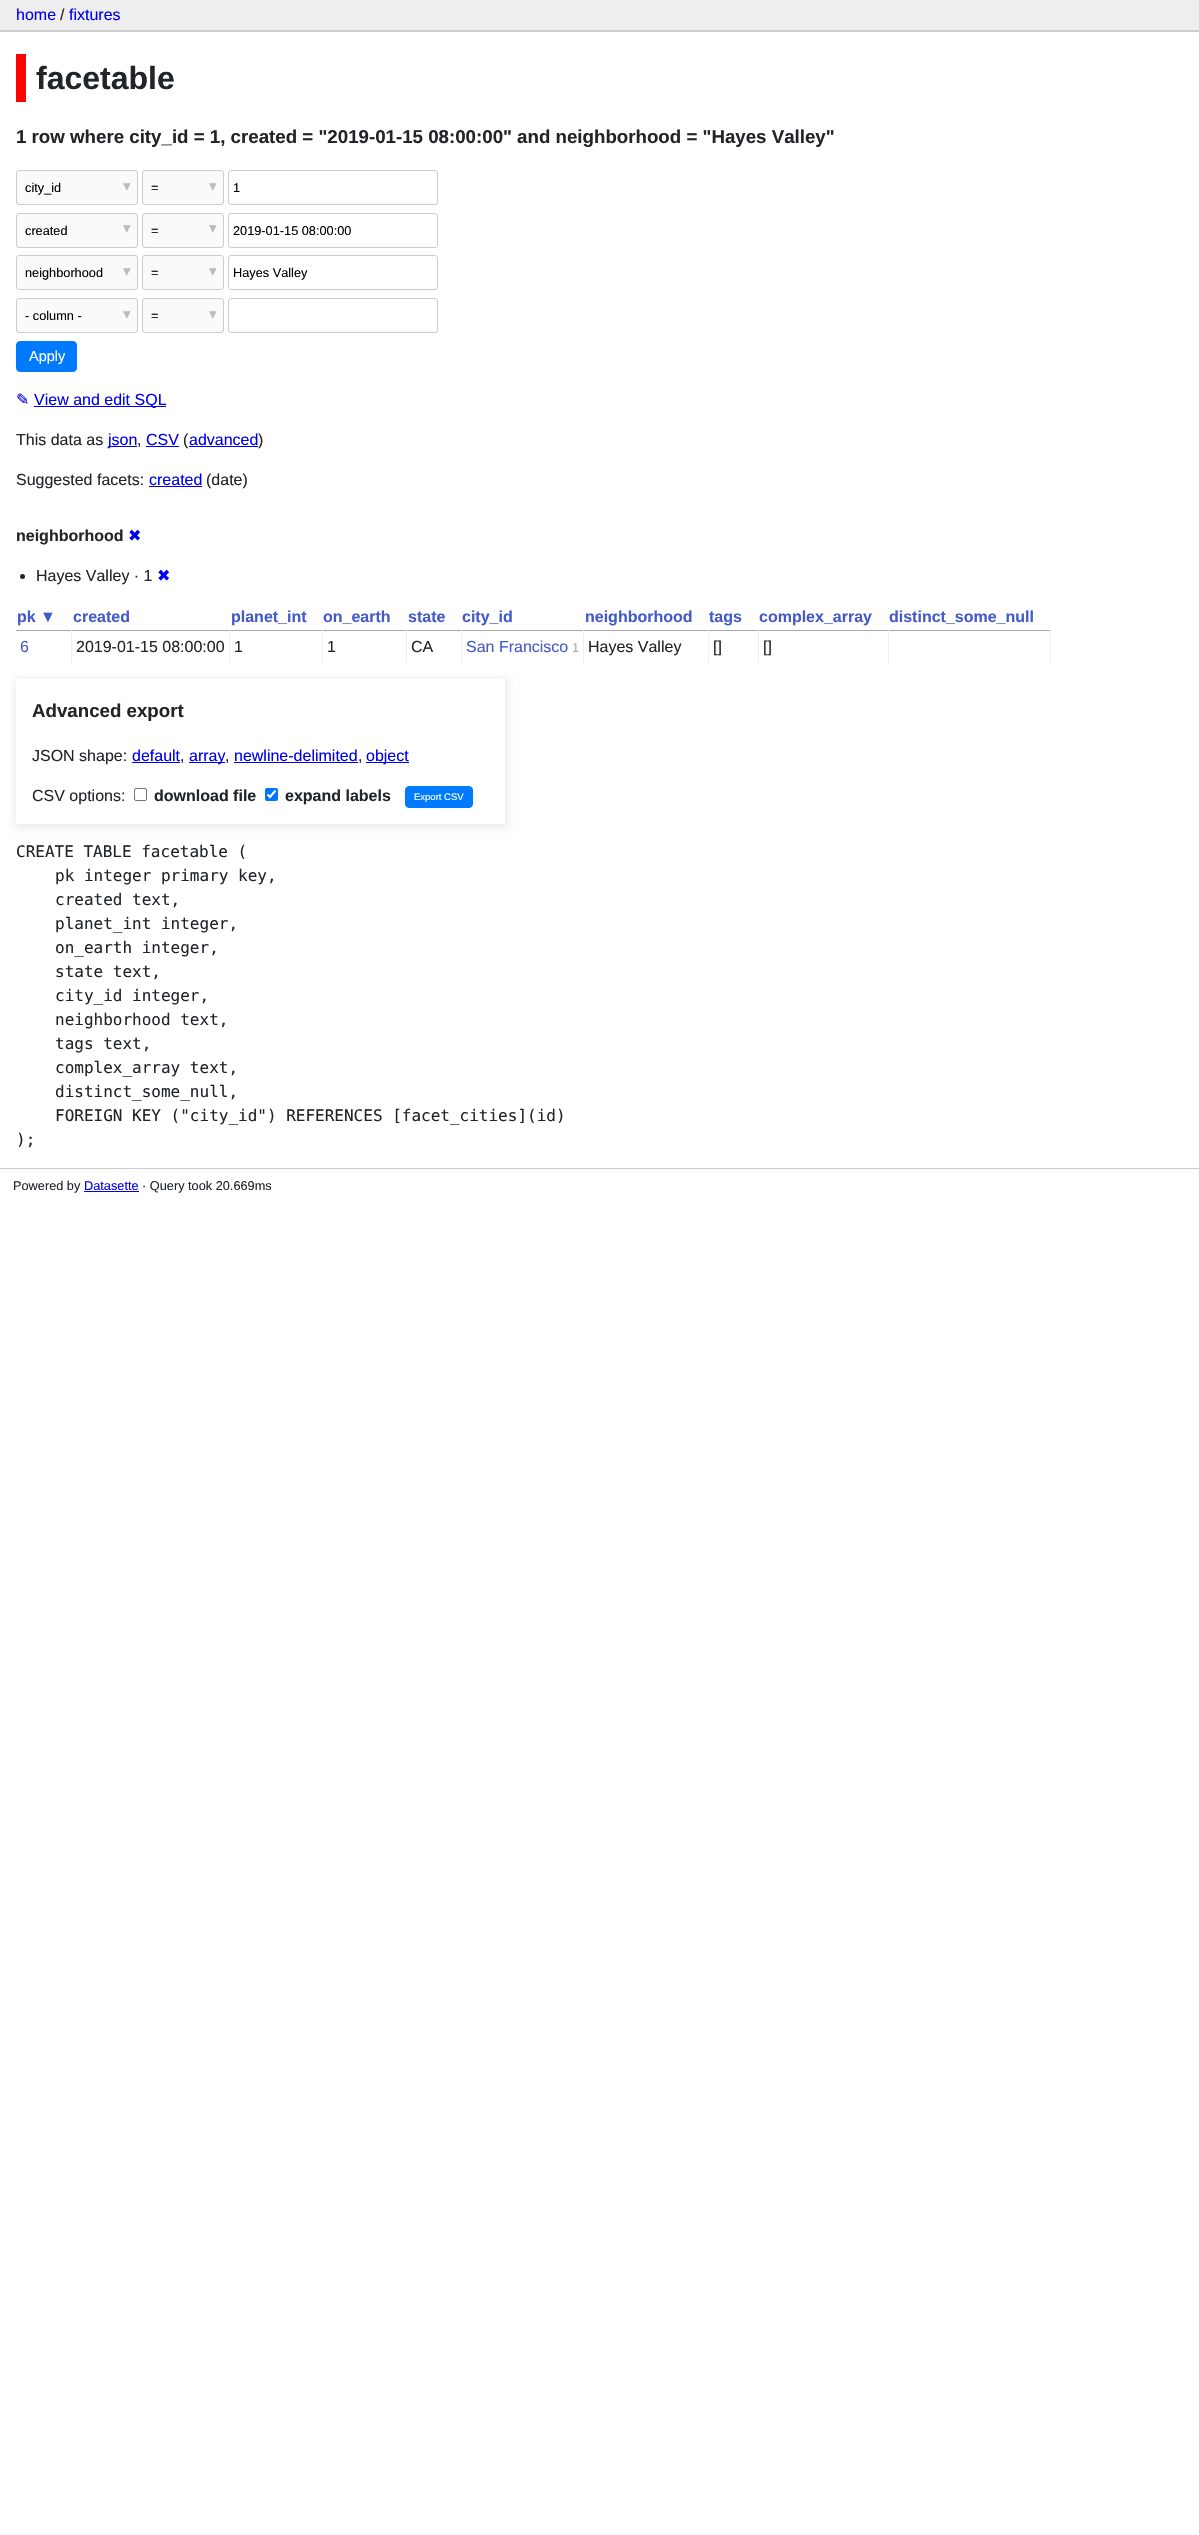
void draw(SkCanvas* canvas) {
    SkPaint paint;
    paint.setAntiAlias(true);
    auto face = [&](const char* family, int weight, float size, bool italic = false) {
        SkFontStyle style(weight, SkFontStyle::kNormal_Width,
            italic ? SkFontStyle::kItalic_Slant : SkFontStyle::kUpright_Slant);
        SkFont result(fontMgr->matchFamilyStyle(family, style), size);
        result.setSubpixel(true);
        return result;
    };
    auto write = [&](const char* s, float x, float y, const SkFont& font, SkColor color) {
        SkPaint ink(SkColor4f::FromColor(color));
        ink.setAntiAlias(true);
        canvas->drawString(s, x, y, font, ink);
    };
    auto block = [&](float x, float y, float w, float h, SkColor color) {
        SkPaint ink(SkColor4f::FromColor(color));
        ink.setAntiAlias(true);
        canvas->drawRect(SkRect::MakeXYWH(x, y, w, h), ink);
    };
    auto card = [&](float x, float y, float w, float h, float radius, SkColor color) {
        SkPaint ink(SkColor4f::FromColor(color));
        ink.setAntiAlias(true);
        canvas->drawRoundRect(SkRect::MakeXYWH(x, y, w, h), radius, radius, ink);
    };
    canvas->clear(SK_ColorWHITE);
    block(0, 0, 1199, 30, SkColorSetRGB(238, 238, 238));
    block(0, 30, 1199, 2, SkColorSetRGB(204, 204, 204));
    auto kFont1 = face("Liberation Sans", 400, 16);
    write("home", 16, 20, kFont1, SkColorSetRGB(0, 0, 238));
    write("/", 60, 20, kFont1, SkColorSetRGB(33, 37, 41));
    write("fixtures", 69, 20, kFont1, SkColorSetRGB(0, 0, 238));
    block(16, 54, 10, 48, SkColorSetRGB(255, 0, 0));
    auto kFont2 = face("Liberation Sans", 700, 32);
    write("facetable", 36, 89, kFont2, SkColorSetRGB(33, 37, 41));
    auto kFont3 = face("Liberation Sans", 700, 18.7f);
    write("1 row where city_id = 1, created = \"2019-01-15 08:00:00\" and neighborhood = \"Hayes Valley\"", 16, 143, kFont3, SkColorSetRGB(33, 37, 41));
    paint.setColor(SkColorSetRGB(250, 250, 250));
    canvas->drawRoundRect(SkRect::MakeXYWH(16.5f, 170.5f, 121, 34), 2.5f, 2.5f, paint);
    paint.setStyle(SkPaint::kStroke_Style);
    paint.setStrokeWidth(1);
    paint.setColor(SkColorSetRGB(204, 204, 204));
    canvas->drawRoundRect(SkRect::MakeXYWH(16.5f, 170.5f, 121, 34), 2.5f, 2.5f, paint);
    auto kFont4 = face("Liberation Sans", 400, 12.75f);
    write("city_id", 25, 192, kFont4, SK_ColorBLACK);
    auto kFont5 = face("DejaVu Sans", 400, 15);
    write("▾", 123, 191, kFont5, SkColorSetRGB(187, 187, 187));
    paint.setStyle(SkPaint::kFill_Style);
    paint.setColor(SkColorSetRGB(250, 250, 250));
    canvas->drawRoundRect(SkRect::MakeXYWH(142.5f, 170.5f, 81, 34), 2.5f, 2.5f, paint);
    paint.setStyle(SkPaint::kStroke_Style);
    paint.setColor(SkColorSetRGB(204, 204, 204));
    canvas->drawRoundRect(SkRect::MakeXYWH(142.5f, 170.5f, 81, 34), 2.5f, 2.5f, paint);
    write("=", 151, 192, kFont4, SK_ColorBLACK);
    write("▾", 209, 191, kFont5, SkColorSetRGB(187, 187, 187));
    canvas->drawRoundRect(SkRect::MakeXYWH(228.5f, 170.5f, 209, 34), 2.5f, 2.5f, paint);
    write("1", 233, 192, kFont4, SK_ColorBLACK);
    paint.setStyle(SkPaint::kFill_Style);
    paint.setColor(SkColorSetRGB(250, 250, 250));
    canvas->drawRoundRect(SkRect::MakeXYWH(16.5f, 213.5f, 121, 34), 2.5f, 2.5f, paint);
    paint.setStyle(SkPaint::kStroke_Style);
    paint.setColor(SkColorSetRGB(204, 204, 204));
    canvas->drawRoundRect(SkRect::MakeXYWH(16.5f, 213.5f, 121, 34), 2.5f, 2.5f, paint);
    write("created", 25, 235, kFont4, SK_ColorBLACK);
    write("▾", 123, 233, kFont5, SkColorSetRGB(187, 187, 187));
    paint.setStyle(SkPaint::kFill_Style);
    paint.setColor(SkColorSetRGB(250, 250, 250));
    canvas->drawRoundRect(SkRect::MakeXYWH(142.5f, 213.5f, 81, 34), 2.5f, 2.5f, paint);
    paint.setStyle(SkPaint::kStroke_Style);
    paint.setColor(SkColorSetRGB(204, 204, 204));
    canvas->drawRoundRect(SkRect::MakeXYWH(142.5f, 213.5f, 81, 34), 2.5f, 2.5f, paint);
    write("=", 151, 235, kFont4, SK_ColorBLACK);
    write("▾", 209, 233, kFont5, SkColorSetRGB(187, 187, 187));
    canvas->drawRoundRect(SkRect::MakeXYWH(228.5f, 213.5f, 209, 34), 2.5f, 2.5f, paint);
    write("2019-01-15 08:00:00", 233, 235, kFont4, SK_ColorBLACK);
    paint.setStyle(SkPaint::kFill_Style);
    paint.setColor(SkColorSetRGB(250, 250, 250));
    canvas->drawRoundRect(SkRect::MakeXYWH(16.5f, 255.5f, 121, 34), 2.5f, 2.5f, paint);
    paint.setStyle(SkPaint::kStroke_Style);
    paint.setColor(SkColorSetRGB(204, 204, 204));
    canvas->drawRoundRect(SkRect::MakeXYWH(16.5f, 255.5f, 121, 34), 2.5f, 2.5f, paint);
    write("neighborhood", 25, 277, kFont4, SK_ColorBLACK);
    write("▾", 123, 276, kFont5, SkColorSetRGB(187, 187, 187));
    paint.setStyle(SkPaint::kFill_Style);
    paint.setColor(SkColorSetRGB(250, 250, 250));
    canvas->drawRoundRect(SkRect::MakeXYWH(142.5f, 255.5f, 81, 34), 2.5f, 2.5f, paint);
    paint.setStyle(SkPaint::kStroke_Style);
    paint.setColor(SkColorSetRGB(204, 204, 204));
    canvas->drawRoundRect(SkRect::MakeXYWH(142.5f, 255.5f, 81, 34), 2.5f, 2.5f, paint);
    write("=", 151, 277, kFont4, SK_ColorBLACK);
    write("▾", 209, 276, kFont5, SkColorSetRGB(187, 187, 187));
    canvas->drawRoundRect(SkRect::MakeXYWH(228.5f, 255.5f, 209, 34), 2.5f, 2.5f, paint);
    write("Hayes Valley", 233, 277, kFont4, SK_ColorBLACK);
    paint.setStyle(SkPaint::kFill_Style);
    paint.setColor(SkColorSetRGB(250, 250, 250));
    canvas->drawRoundRect(SkRect::MakeXYWH(16.5f, 298.5f, 121, 34), 2.5f, 2.5f, paint);
    paint.setStyle(SkPaint::kStroke_Style);
    paint.setColor(SkColorSetRGB(204, 204, 204));
    canvas->drawRoundRect(SkRect::MakeXYWH(16.5f, 298.5f, 121, 34), 2.5f, 2.5f, paint);
    write("- column -", 25, 320, kFont4, SK_ColorBLACK);
    write("▾", 123, 319, kFont5, SkColorSetRGB(187, 187, 187));
    paint.setStyle(SkPaint::kFill_Style);
    paint.setColor(SkColorSetRGB(250, 250, 250));
    canvas->drawRoundRect(SkRect::MakeXYWH(142.5f, 298.5f, 81, 34), 2.5f, 2.5f, paint);
    paint.setStyle(SkPaint::kStroke_Style);
    paint.setColor(SkColorSetRGB(204, 204, 204));
    canvas->drawRoundRect(SkRect::MakeXYWH(142.5f, 298.5f, 81, 34), 2.5f, 2.5f, paint);
    write("=", 151, 320, kFont4, SK_ColorBLACK);
    write("▾", 209, 319, kFont5, SkColorSetRGB(187, 187, 187));
    canvas->drawRoundRect(SkRect::MakeXYWH(228.5f, 298.5f, 209, 34), 2.5f, 2.5f, paint);
    paint.setStyle(SkPaint::kFill_Style);
    paint.setColor(SkColorSetRGB(0, 123, 255));
    canvas->drawRoundRect(SkRect::MakeXYWH(16.5f, 341.5f, 60, 30), 3.5f, 3.5f, paint);
    paint.setStyle(SkPaint::kStroke_Style);
    canvas->drawRoundRect(SkRect::MakeXYWH(16.5f, 341.5f, 60, 30), 3.5f, 3.5f, paint);
    auto kFont6 = face("Liberation Sans", 400, 14.5f);
    write("Apply", 29, 361, kFont6, SK_ColorWHITE);
    auto kFont7 = face("DejaVu Sans", 400, 16);
    write("✎", 16, 405, kFont7, SkColorSetRGB(0, 0, 238));
    block(34, 406, 132, 1, SkColorSetRGB(0, 0, 238));
    write("View and edit SQL", 34, 405, kFont1, SkColorSetRGB(0, 0, 238));
    write("This data as", 16, 445, kFont1, SkColorSetRGB(33, 37, 41));
    block(108, 446, 29, 1, SkColorSetRGB(0, 0, 238));
    write("json", 108, 445, kFont1, SkColorSetRGB(0, 0, 238));
    write(",", 137, 445, kFont1, SkColorSetRGB(33, 37, 41));
    write("CSV", 146, 445, kFont1, SkColorSetRGB(0, 0, 238));
    block(146, 446, 33, 1, SkColorSetRGB(0, 0, 238));
    write("(", 183, 445, kFont1, SkColorSetRGB(33, 37, 41));
    write("advanced", 189, 445, kFont1, SkColorSetRGB(0, 0, 238));
    block(189, 446, 69, 1, SkColorSetRGB(0, 0, 238));
    write(")", 258, 445, kFont1, SkColorSetRGB(33, 37, 41));
    write("Suggested facets:", 16, 485, kFont1, SkColorSetRGB(33, 37, 41));
    write("created", 149, 485, kFont1, SkColorSetRGB(0, 0, 238));
    block(149, 486, 53, 1, SkColorSetRGB(0, 0, 238));
    write("(date)", 206, 485, kFont1, SkColorSetRGB(33, 37, 41));
    auto kFont8 = face("Liberation Sans", 700, 16);
    write("neighborhood", 16, 541, kFont8, SkColorSetRGB(33, 37, 41));
    write("✖", 128, 541, kFont7, SkColorSetRGB(0, 0, 238));
    paint.setStyle(SkPaint::kFill_Style);
    paint.setColor(SkColorSetRGB(33, 37, 41));
    canvas->drawCircle(22.5f, 576.5f, 2.5f, paint);
    write("Hayes Valley · 1", 36, 581, kFont1, SkColorSetRGB(33, 37, 41));
    write("✖", 157, 581, kFont7, SkColorSetRGB(0, 0, 238));
    write("pk ▼", 17, 622, kFont8, SkColorSetRGB(68, 90, 200));
    write("created", 73, 622, kFont8, SkColorSetRGB(68, 90, 200));
    write("planet_int", 231, 622, kFont8, SkColorSetRGB(68, 90, 200));
    write("on_earth", 323, 622, kFont8, SkColorSetRGB(68, 90, 200));
    write("state", 408, 622, kFont8, SkColorSetRGB(68, 90, 200));
    write("city_id", 462, 622, kFont8, SkColorSetRGB(68, 90, 200));
    write("neighborhood", 585, 622, kFont8, SkColorSetRGB(68, 90, 200));
    write("tags", 709, 622, kFont8, SkColorSetRGB(68, 90, 200));
    write("complex_array", 759, 622, kFont8, SkColorSetRGB(68, 90, 200));
    write("distinct_some_null", 889, 622, kFont8, SkColorSetRGB(68, 90, 200));
    block(16, 630, 1035, 1, SkColorSetRGB(170, 170, 170));
    block(1050, 630, 1, 33, SkColorSetRGB(238, 238, 238));
    block(71, 630, 1, 33, SkColorSetRGB(238, 238, 238));
    write("6", 20, 652, kFont1, SkColorSetRGB(68, 90, 200));
    block(229, 630, 1, 33, SkColorSetRGB(238, 238, 238));
    write("2019-01-15 08:00:00", 76, 652, kFont1, SkColorSetRGB(33, 37, 41));
    block(322, 630, 1, 33, SkColorSetRGB(238, 238, 238));
    write("1", 234, 652, kFont1, SkColorSetRGB(33, 37, 41));
    block(406, 630, 1, 33, SkColorSetRGB(238, 238, 238));
    write("1", 327, 652, kFont1, SkColorSetRGB(33, 37, 41));
    block(461, 630, 1, 33, SkColorSetRGB(238, 238, 238));
    write("CA", 411, 652, kFont1, SkColorSetRGB(33, 37, 41));
    block(583, 630, 1, 33, SkColorSetRGB(238, 238, 238));
    write("San Francisco", 466, 652, kFont1, SkColorSetRGB(68, 90, 200));
    write("1", 572, 652, kFont4, SkColorSetRGB(170, 170, 170));
    block(708, 630, 1, 33, SkColorSetRGB(238, 238, 238));
    write("Hayes Valley", 588, 652, kFont1, SkColorSetRGB(33, 37, 41));
    block(758, 630, 1, 33, SkColorSetRGB(238, 238, 238));
    write("[]", 713, 652, kFont1, SkColorSetRGB(33, 37, 41));
    block(888, 630, 1, 33, SkColorSetRGB(238, 238, 238));
    write("[]", 763, 652, kFont1, SkColorSetRGB(33, 37, 41));
    canvas->save();
    canvas->clipPath(SkPathBuilder(SkPathFillType::kEvenOdd).moveTo(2, 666).lineTo(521, 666).lineTo(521, 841).lineTo(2, 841).close().moveTo(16, 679).lineTo(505, 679).lineTo(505, 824).lineTo(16, 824).close().detach(), true);
    paint.setColor(SkColorSetARGB(20, 0, 0, 0));
    paint.setMaskFilter(SkMaskFilter::MakeBlur(kNormal_SkBlurStyle, 4));
    canvas->drawRect(SkRect::MakeXYWH(15, 679, 493, 149), paint);
    paint.setMaskFilter(nullptr);
    canvas->restore();
    write("Advanced export", 32, 717, kFont3, SkColorSetRGB(33, 37, 41));
    write("JSON shape:", 32, 761, kFont1, SkColorSetRGB(33, 37, 41));
    write("default", 132, 761, kFont1, SkColorSetRGB(0, 0, 238));
    block(132, 762, 48, 1, SkColorSetRGB(0, 0, 238));
    write(",", 180, 761, kFont1, SkColorSetRGB(33, 37, 41));
    block(189, 762, 36, 1, SkColorSetRGB(0, 0, 238));
    write("array", 189, 761, kFont1, SkColorSetRGB(0, 0, 238));
    write(",", 225, 761, kFont1, SkColorSetRGB(33, 37, 41));
    write("newline-delimited", 234, 761, kFont1, SkColorSetRGB(0, 0, 238));
    block(234, 762, 124, 1, SkColorSetRGB(0, 0, 238));
    write(",", 358, 761, kFont1, SkColorSetRGB(33, 37, 41));
    block(366, 762, 43, 1, SkColorSetRGB(0, 0, 238));
    write("object", 366, 761, kFont1, SkColorSetRGB(0, 0, 238));
    write("CSV options:", 32, 801, kFont1, SkColorSetRGB(33, 37, 41));
    paint.setStyle(SkPaint::kStroke_Style);
    paint.setColor(SkColorSetRGB(118, 118, 118));
    canvas->drawRoundRect(SkRect::MakeXYWH(134.5f, 788.5f, 12, 12), 1.5f, 1.5f, paint);
    write("download file", 154, 801, kFont8, SkColorSetRGB(33, 37, 41));
    card(265, 788, 13, 13, 2, SkColorSetRGB(0, 117, 255));
    paint.setStrokeWidth(2.1f);
    paint.setColor(SK_ColorWHITE);
    canvas->drawPath(SkPathBuilder().moveTo(267.5f, 794.5f).lineTo(270, 797).lineTo(275.5f, 790.5f).detach(), paint);
    write("expand labels", 285, 801, kFont8, SkColorSetRGB(33, 37, 41));
    paint.setStyle(SkPaint::kFill_Style);
    paint.setColor(SkColorSetRGB(0, 123, 255));
    canvas->drawRoundRect(SkRect::MakeXYWH(405.5f, 786.5f, 67, 21), 3.5f, 3.5f, paint);
    paint.setStyle(SkPaint::kStroke_Style);
    paint.setStrokeWidth(1);
    canvas->drawRoundRect(SkRect::MakeXYWH(405.5f, 786.5f, 67, 21), 3.5f, 3.5f, paint);
    auto kFont9 = face("Liberation Sans", 400, 9.5f);
    write("Export CSV", 414, 800, kFont9, SK_ColorWHITE);
    auto kFont10 = face("DejaVu Sans Mono", 400, 16);
    write("CREATE TABLE facetable (", 16, 857, kFont10, SkColorSetRGB(33, 37, 41));
    write("pk integer primary key,", 55, 881, kFont10, SkColorSetRGB(33, 37, 41));
    write("created text,", 55, 905, kFont10, SkColorSetRGB(33, 37, 41));
    write("planet_int integer,", 55, 929, kFont10, SkColorSetRGB(33, 37, 41));
    write("on_earth integer,", 55, 953, kFont10, SkColorSetRGB(33, 37, 41));
    write("state text,", 55, 977, kFont10, SkColorSetRGB(33, 37, 41));
    write("city_id integer,", 55, 1001, kFont10, SkColorSetRGB(33, 37, 41));
    write("neighborhood text,", 55, 1025, kFont10, SkColorSetRGB(33, 37, 41));
    write("tags text,", 55, 1049, kFont10, SkColorSetRGB(33, 37, 41));
    write("complex_array text,", 55, 1073, kFont10, SkColorSetRGB(33, 37, 41));
    write("distinct_some_null,", 55, 1097, kFont10, SkColorSetRGB(33, 37, 41));
    write("FOREIGN KEY (\"city_id\") REFERENCES [facet_cities](id)", 55, 1121, kFont10, SkColorSetRGB(33, 37, 41));
    write(");", 16, 1145, kFont10, SkColorSetRGB(33, 37, 41));
    block(0, 1168, 1199, 1, SkColorSetRGB(204, 204, 204));
    write("Powered by", 13, 1190, kFont4, SkColorSetRGB(33, 37, 41));
    write("Datasette", 84, 1190, kFont4, SkColorSetRGB(0, 0, 238));
    block(84, 1191, 55, 1, SkColorSetRGB(0, 0, 238));
    write("· Query took 20.669ms", 142, 1190, kFont4, SkColorSetRGB(33, 37, 41));
}
